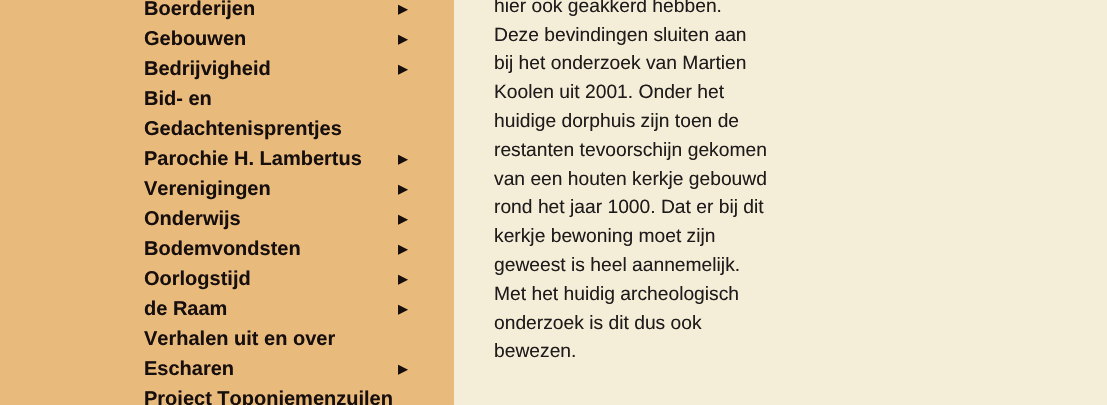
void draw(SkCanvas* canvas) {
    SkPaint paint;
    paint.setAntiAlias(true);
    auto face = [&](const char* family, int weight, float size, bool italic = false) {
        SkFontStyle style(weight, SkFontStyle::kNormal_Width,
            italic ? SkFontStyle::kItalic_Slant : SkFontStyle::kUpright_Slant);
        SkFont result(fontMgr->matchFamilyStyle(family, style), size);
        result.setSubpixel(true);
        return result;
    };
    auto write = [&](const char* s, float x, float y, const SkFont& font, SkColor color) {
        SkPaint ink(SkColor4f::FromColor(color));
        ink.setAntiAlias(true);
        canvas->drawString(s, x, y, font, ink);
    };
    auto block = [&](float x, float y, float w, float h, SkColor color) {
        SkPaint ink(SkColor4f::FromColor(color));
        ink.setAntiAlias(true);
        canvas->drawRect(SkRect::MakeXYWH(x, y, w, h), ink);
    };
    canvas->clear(SkColorSetRGB(244, 238, 217));
    block(0, 0, 454, 405, SkColorSetRGB(232, 186, 123));
    auto kFont1 = face("Liberation Sans", 700, 20);
    write("Boerderijen", 144, 15, kFont1, SkColorSetRGB(23, 14, 14));
    auto kFont2 = face("DejaVu Sans", 400, 20);
    write("▸", 398, 15, kFont2, SkColorSetRGB(23, 14, 14));
    write("Gebouwen", 144, 45, kFont1, SkColorSetRGB(23, 14, 14));
    write("▸", 398, 45, kFont2, SkColorSetRGB(23, 14, 14));
    write("Bedrijvigheid", 144, 75, kFont1, SkColorSetRGB(23, 14, 14));
    write("▸", 398, 75, kFont2, SkColorSetRGB(23, 14, 14));
    write("Bid- en", 144, 105, kFont1, SkColorSetRGB(23, 14, 14));
    write("Gedachtenisprentjes", 144, 135, kFont1, SkColorSetRGB(23, 14, 14));
    write("Parochie H. Lambertus", 144, 165, kFont1, SkColorSetRGB(23, 14, 14));
    write("▸", 398, 165, kFont2, SkColorSetRGB(23, 14, 14));
    write("Verenigingen", 144, 195, kFont1, SkColorSetRGB(23, 14, 14));
    write("▸", 398, 195, kFont2, SkColorSetRGB(23, 14, 14));
    write("Onderwijs", 144, 225, kFont1, SkColorSetRGB(23, 14, 14));
    write("▸", 398, 225, kFont2, SkColorSetRGB(23, 14, 14));
    write("Bodemvondsten", 144, 255, kFont1, SkColorSetRGB(23, 14, 14));
    write("▸", 398, 255, kFont2, SkColorSetRGB(23, 14, 14));
    write("Oorlogstijd", 144, 285, kFont1, SkColorSetRGB(23, 14, 14));
    write("▸", 398, 285, kFont2, SkColorSetRGB(23, 14, 14));
    write("de Raam", 144, 315, kFont1, SkColorSetRGB(23, 14, 14));
    write("▸", 398, 315, kFont2, SkColorSetRGB(23, 14, 14));
    write("Verhalen uit en over", 144, 345, kFont1, SkColorSetRGB(23, 14, 14));
    write("Escharen", 144, 375, kFont1, SkColorSetRGB(23, 14, 14));
    write("▸", 398, 375, kFont2, SkColorSetRGB(23, 14, 14));
    write("Project Toponiemenzuilen", 144, 405, kFont1, SkColorSetRGB(23, 14, 14));
    auto kFont3 = face("Liberation Sans", 400, 19.25f);
    write("hier ook geakkerd hebben.", 494, 12, kFont3, SkColorSetRGB(31, 27, 27));
    write("Deze bevindingen sluiten aan", 494, 41, kFont3, SkColorSetRGB(31, 27, 27));
    write("bij het onderzoek van Martien", 494, 69, kFont3, SkColorSetRGB(31, 27, 27));
    write("Koolen uit 2001. Onder het", 494, 98, kFont3, SkColorSetRGB(31, 27, 27));
    write("huidige dorphuis zijn toen de", 494, 127, kFont3, SkColorSetRGB(31, 27, 27));
    write("restanten tevoorschijn gekomen", 494, 156, kFont3, SkColorSetRGB(31, 27, 27));
    write("van een houten kerkje gebouwd", 494, 185, kFont3, SkColorSetRGB(31, 27, 27));
    write("rond het jaar 1000. Dat er bij dit", 494, 213, kFont3, SkColorSetRGB(31, 27, 27));
    write("kerkje bewoning moet zijn", 494, 242, kFont3, SkColorSetRGB(31, 27, 27));
    write("geweest is heel aannemelijk.", 494, 271, kFont3, SkColorSetRGB(31, 27, 27));
    write("Met het huidig archeologisch", 494, 300, kFont3, SkColorSetRGB(31, 27, 27));
    write("onderzoek is dit dus ook", 494, 329, kFont3, SkColorSetRGB(31, 27, 27));
    write("bewezen.", 494, 357, kFont3, SkColorSetRGB(31, 27, 27));
}
